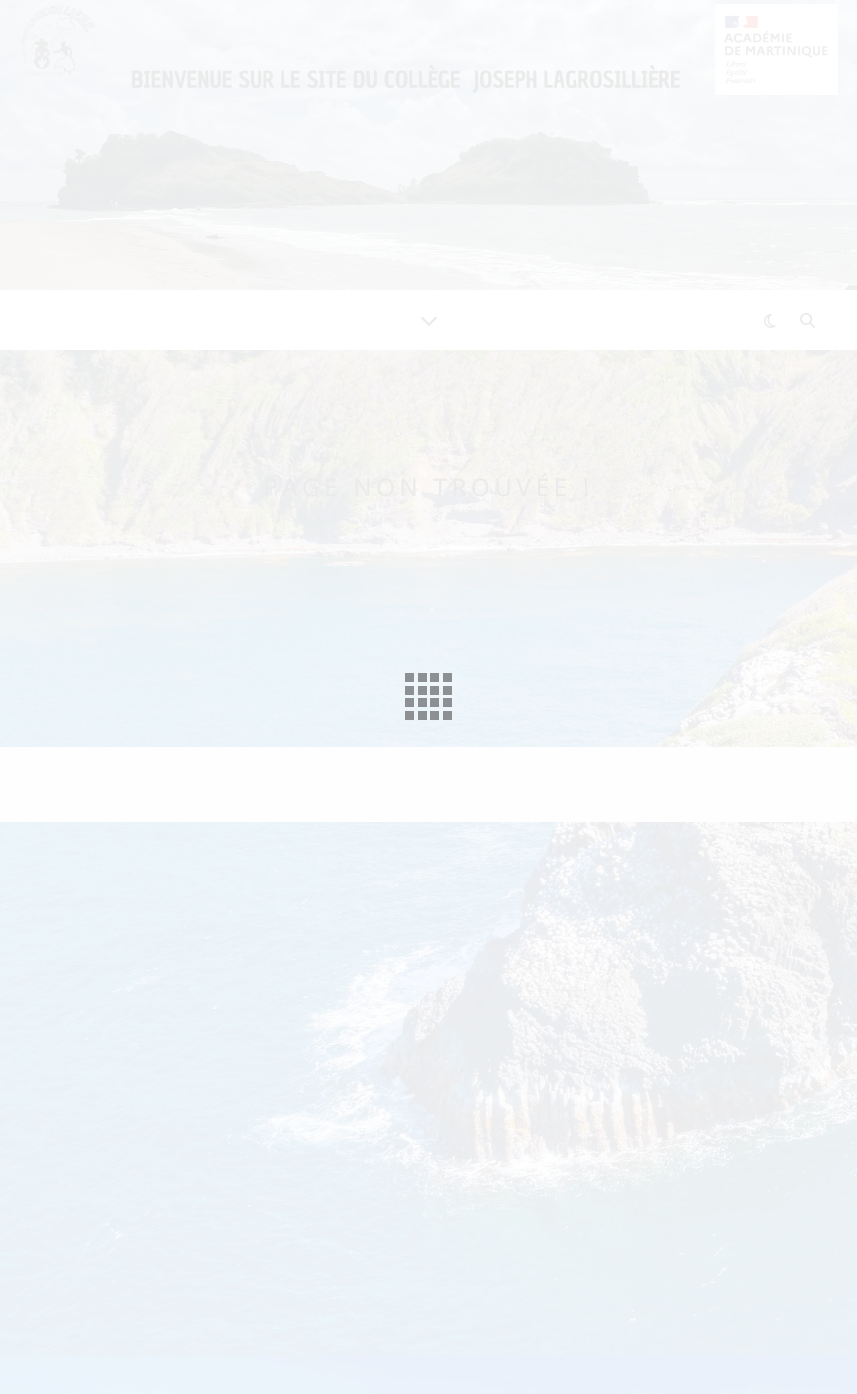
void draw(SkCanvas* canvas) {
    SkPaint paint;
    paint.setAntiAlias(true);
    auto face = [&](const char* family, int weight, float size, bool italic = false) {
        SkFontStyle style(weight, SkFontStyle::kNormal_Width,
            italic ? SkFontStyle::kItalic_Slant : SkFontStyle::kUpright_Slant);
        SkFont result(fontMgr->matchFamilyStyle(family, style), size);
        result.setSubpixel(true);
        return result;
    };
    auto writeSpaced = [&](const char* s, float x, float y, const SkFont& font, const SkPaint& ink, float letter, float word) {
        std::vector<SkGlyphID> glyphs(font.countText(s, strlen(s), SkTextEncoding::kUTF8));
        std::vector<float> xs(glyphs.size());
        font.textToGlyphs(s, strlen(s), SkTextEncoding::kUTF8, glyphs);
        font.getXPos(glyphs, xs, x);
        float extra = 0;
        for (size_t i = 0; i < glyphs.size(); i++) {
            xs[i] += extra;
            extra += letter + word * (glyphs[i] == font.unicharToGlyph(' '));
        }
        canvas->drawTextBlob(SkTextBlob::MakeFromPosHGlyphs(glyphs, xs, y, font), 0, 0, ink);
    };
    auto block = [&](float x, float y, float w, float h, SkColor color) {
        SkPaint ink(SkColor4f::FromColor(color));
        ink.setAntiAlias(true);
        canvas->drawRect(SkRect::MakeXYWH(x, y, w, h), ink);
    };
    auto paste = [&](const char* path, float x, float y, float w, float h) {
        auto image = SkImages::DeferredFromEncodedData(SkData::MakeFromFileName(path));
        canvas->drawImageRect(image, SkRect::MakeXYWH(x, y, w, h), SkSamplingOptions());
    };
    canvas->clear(SK_ColorWHITE);
    paste("pic1.png", 0, 350, 857, 1044);
    paste("pic2.png", 0, 0, 857, 290);
    paste("pic3.png", 421, 316, 16, 10);
    paste("pic4.png", 764, 314, 12, 14);
    paste("pic5.png", 800, 312, 15, 16);
    auto kFont1 = face("Open Sans", 400, 24);
    paint.setColor(SkColorSetRGB(235, 235, 235));
    writeSpaced("PAGE NON TROUVÉE !", 263, 496, kFont1, paint, 4.75f, 0);
    block(0, 747, 857, 75, SkColorSetRGB(254, 254, 254));
    block(405, 673, 9, 9, SkColorSetARGB(133, 51, 51, 51));
    block(418, 673, 9, 9, SkColorSetARGB(133, 51, 51, 51));
    block(430, 673, 9, 9, SkColorSetARGB(133, 51, 51, 51));
    block(443, 673, 9, 9, SkColorSetARGB(133, 51, 51, 51));
    block(405, 686, 9, 9, SkColorSetARGB(133, 51, 51, 51));
    block(418, 686, 9, 9, SkColorSetARGB(133, 51, 51, 51));
    block(430, 686, 9, 9, SkColorSetARGB(133, 51, 51, 51));
    block(443, 686, 9, 9, SkColorSetARGB(133, 51, 51, 51));
    block(405, 698, 9, 9, SkColorSetARGB(133, 51, 51, 51));
    block(418, 698, 9, 9, SkColorSetARGB(133, 51, 51, 51));
    block(430, 698, 9, 9, SkColorSetARGB(133, 51, 51, 51));
    block(443, 698, 9, 9, SkColorSetARGB(133, 51, 51, 51));
    block(405, 711, 9, 9, SkColorSetARGB(133, 51, 51, 51));
    block(418, 711, 9, 9, SkColorSetARGB(133, 51, 51, 51));
    block(430, 711, 9, 9, SkColorSetARGB(133, 51, 51, 51));
    block(443, 711, 9, 9, SkColorSetARGB(133, 51, 51, 51));
}
